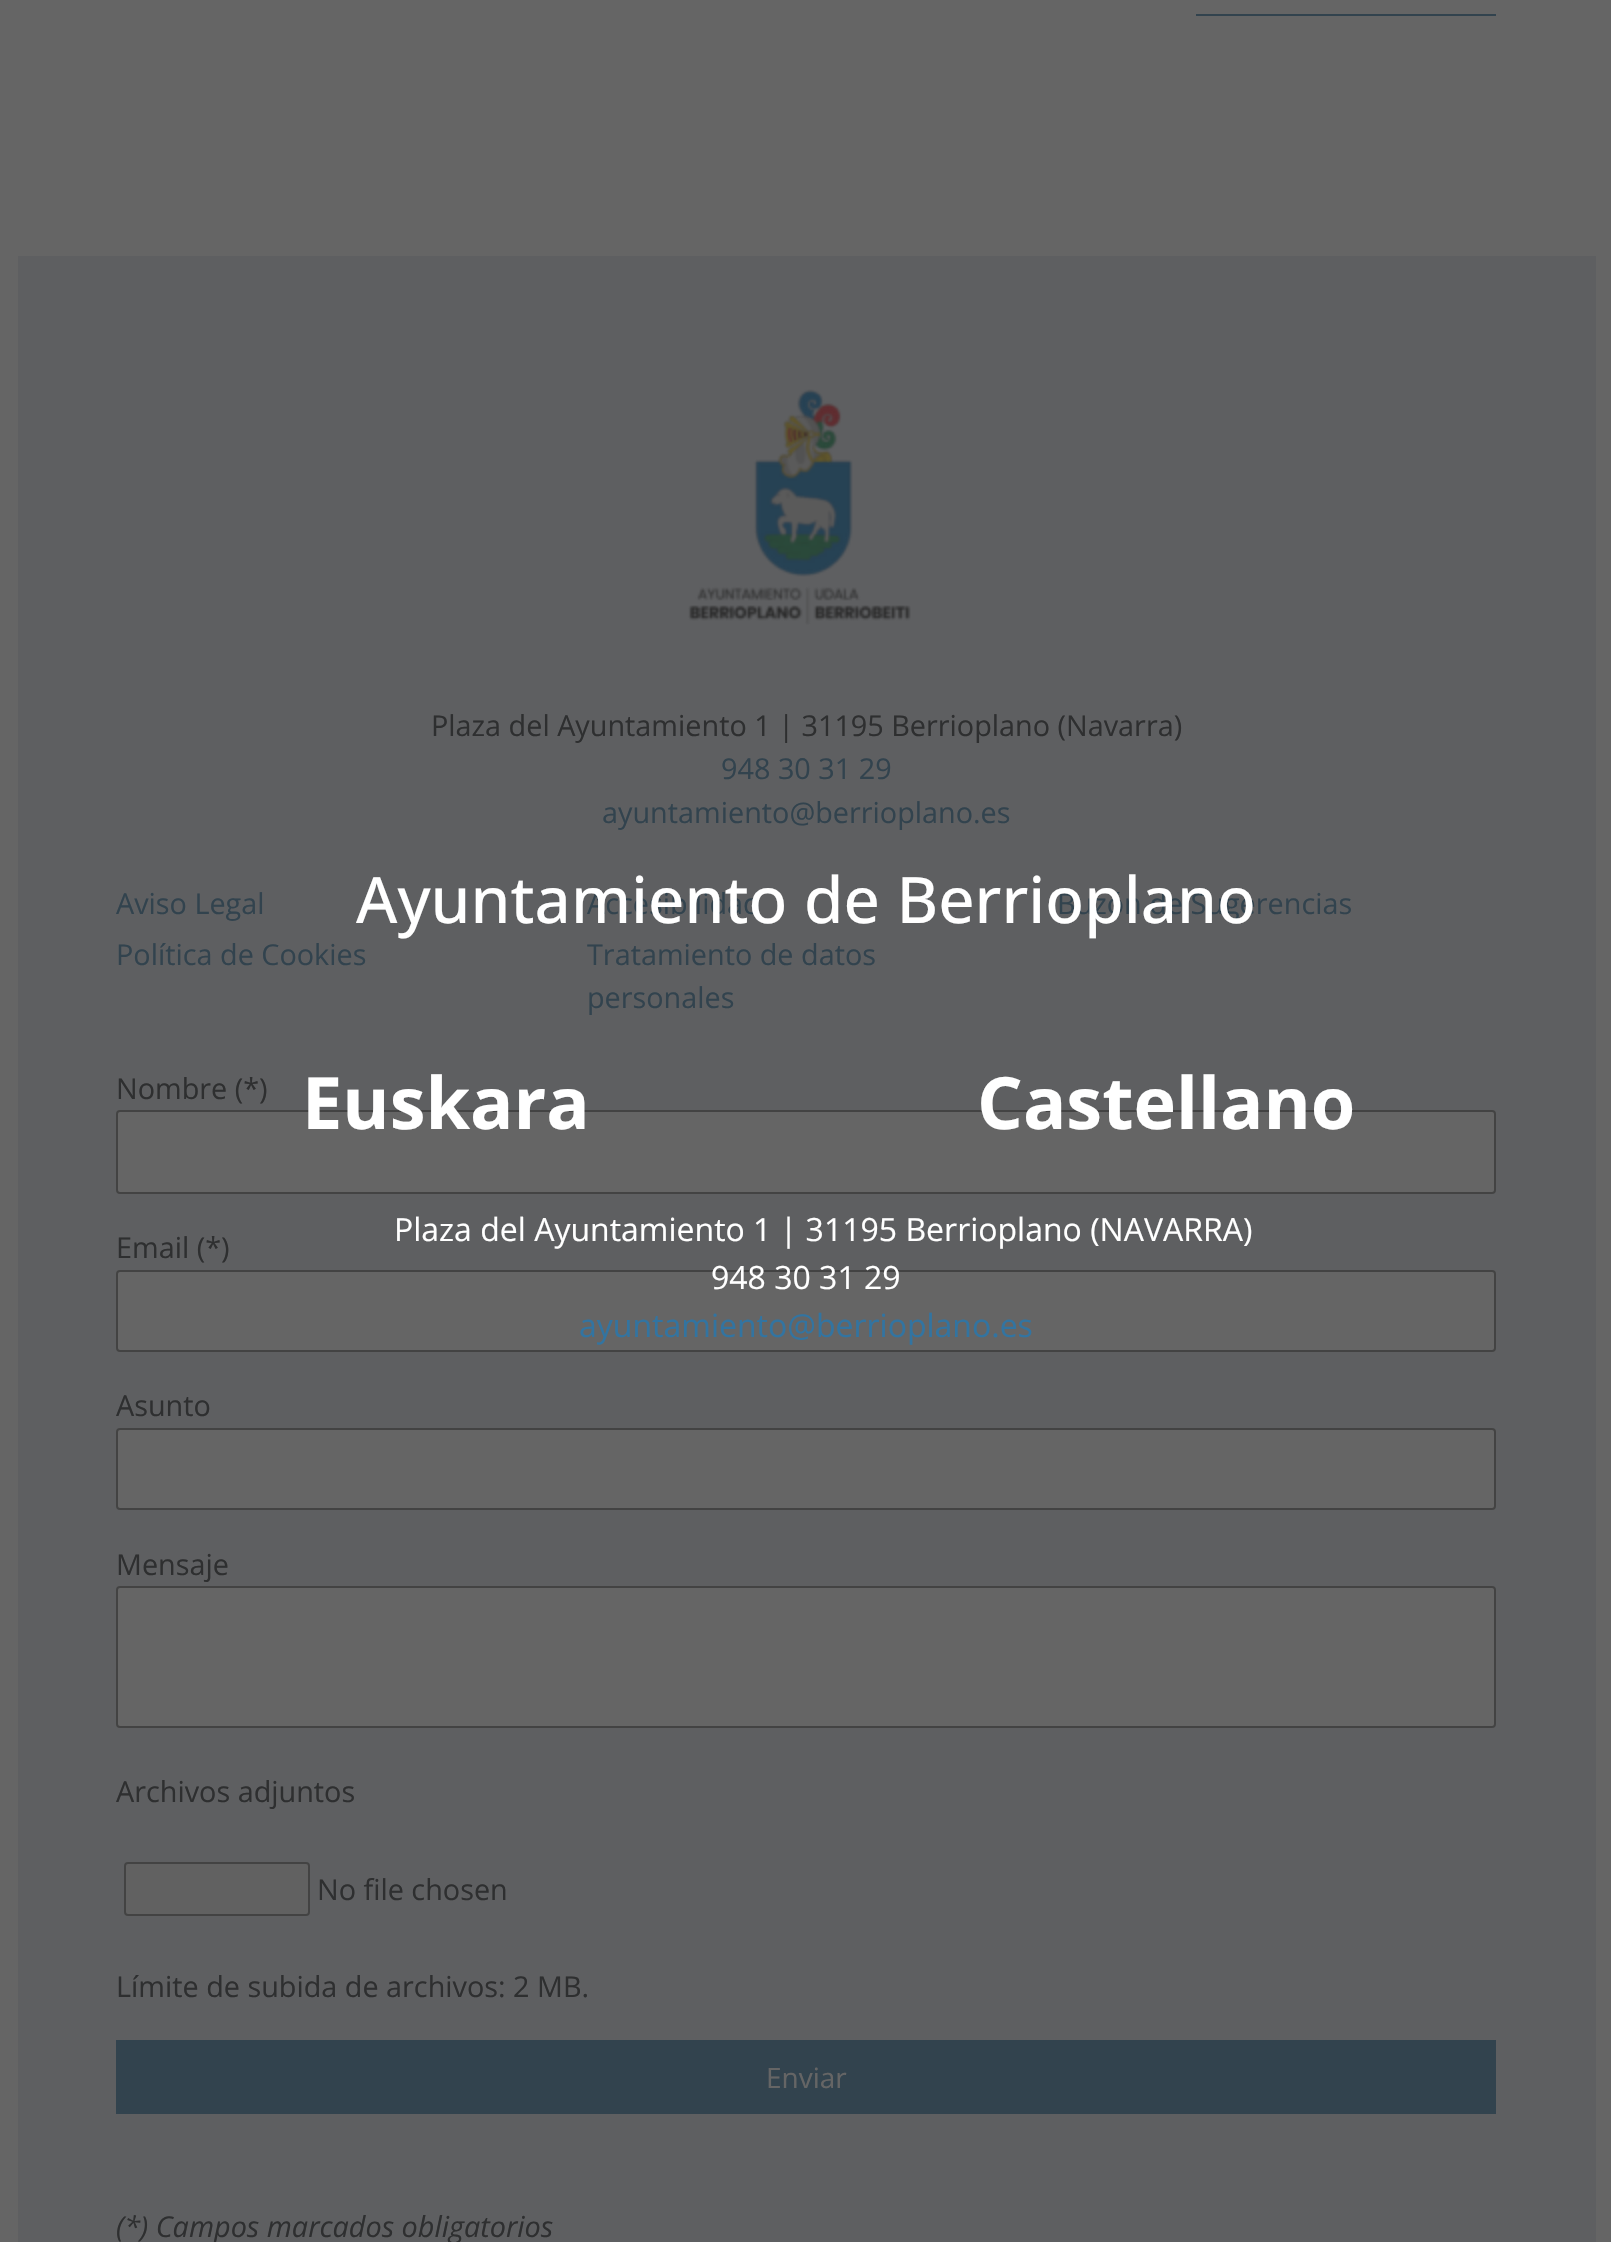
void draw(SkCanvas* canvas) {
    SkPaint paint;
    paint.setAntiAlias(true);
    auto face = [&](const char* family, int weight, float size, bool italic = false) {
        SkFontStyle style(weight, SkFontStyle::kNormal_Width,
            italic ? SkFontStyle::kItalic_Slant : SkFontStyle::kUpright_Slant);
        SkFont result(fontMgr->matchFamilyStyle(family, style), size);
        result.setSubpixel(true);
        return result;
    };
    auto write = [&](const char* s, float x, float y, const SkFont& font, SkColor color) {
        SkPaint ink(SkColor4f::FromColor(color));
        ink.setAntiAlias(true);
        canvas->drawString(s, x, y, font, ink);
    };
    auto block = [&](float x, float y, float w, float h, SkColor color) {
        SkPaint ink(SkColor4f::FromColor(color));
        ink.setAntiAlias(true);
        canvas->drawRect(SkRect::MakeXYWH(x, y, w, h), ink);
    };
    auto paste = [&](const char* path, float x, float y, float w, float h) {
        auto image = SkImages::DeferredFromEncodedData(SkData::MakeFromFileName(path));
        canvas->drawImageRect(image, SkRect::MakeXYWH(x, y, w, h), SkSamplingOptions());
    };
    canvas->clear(SkColorSetRGB(101, 101, 101));
    block(1196, 14, 300, 2, SkColorSetRGB(50, 67, 78));
    block(18, 256, 1578, 1986, SkColorSetRGB(94, 95, 97));
    paste("pic1.png", 688, 389, 223, 236);
    auto kFont1 = face("Open Sans", 400, 28.8f);
    write("Plaza del Ayuntamiento 1 | 31195 Berrioplano (Navarra)", 431, 736, kFont1, SkColorSetRGB(46, 47, 48));
    write("948 30 31 29", 721, 779, kFont1, SkColorSetRGB(50, 67, 78));
    write("ayuntamiento@berrioplano.es", 602, 823, kFont1, SkColorSetRGB(50, 67, 78));
    write("Aviso Legal", 116, 914, kFont1, SkColorSetRGB(50, 67, 78));
    write("Accesibilidad", 587, 914, kFont1, SkColorSetRGB(50, 67, 78));
    write("Buzón de Sugerencias", 1057, 914, kFont1, SkColorSetRGB(50, 67, 78));
    write("Política de Cookies", 116, 965, kFont1, SkColorSetRGB(50, 67, 78));
    write("Tratamiento de datos", 587, 965, kFont1, SkColorSetRGB(50, 67, 78));
    write("personales", 587, 1008, kFont1, SkColorSetRGB(50, 67, 78));
    write("Nombre (*)", 116, 1099, kFont1, SkColorSetRGB(46, 47, 48));
    paint.setColor(SkColorSetRGB(101, 101, 101));
    canvas->drawRoundRect(SkRect::MakeXYWH(117, 1111, 1378, 82), 3, 3, paint);
    paint.setStyle(SkPaint::kStroke_Style);
    paint.setStrokeWidth(2);
    paint.setColor(SkColorSetRGB(67, 67, 67));
    canvas->drawRoundRect(SkRect::MakeXYWH(117, 1111, 1378, 82), 3, 3, paint);
    write("Email (*)", 116, 1258, kFont1, SkColorSetRGB(46, 47, 48));
    paint.setStyle(SkPaint::kFill_Style);
    paint.setColor(SkColorSetRGB(101, 101, 101));
    canvas->drawRoundRect(SkRect::MakeXYWH(117, 1271, 1378, 80), 3, 3, paint);
    paint.setStyle(SkPaint::kStroke_Style);
    paint.setColor(SkColorSetRGB(67, 67, 67));
    canvas->drawRoundRect(SkRect::MakeXYWH(117, 1271, 1378, 80), 3, 3, paint);
    write("Asunto", 116, 1416, kFont1, SkColorSetRGB(46, 47, 48));
    paint.setStyle(SkPaint::kFill_Style);
    paint.setColor(SkColorSetRGB(101, 101, 101));
    canvas->drawRoundRect(SkRect::MakeXYWH(117, 1429, 1378, 80), 3, 3, paint);
    paint.setStyle(SkPaint::kStroke_Style);
    paint.setColor(SkColorSetRGB(67, 67, 67));
    canvas->drawRoundRect(SkRect::MakeXYWH(117, 1429, 1378, 80), 3, 3, paint);
    write("Mensaje", 116, 1575, kFont1, SkColorSetRGB(46, 47, 48));
    paint.setStyle(SkPaint::kFill_Style);
    paint.setColor(SkColorSetRGB(101, 101, 101));
    canvas->drawRoundRect(SkRect::MakeXYWH(117, 1587, 1378, 140), 3, 3, paint);
    paint.setStyle(SkPaint::kStroke_Style);
    paint.setColor(SkColorSetRGB(67, 67, 67));
    canvas->drawRoundRect(SkRect::MakeXYWH(117, 1587, 1378, 140), 3, 3, paint);
    write("Archivos adjuntos", 116, 1802, kFont1, SkColorSetRGB(46, 47, 48));
    paint.setStyle(SkPaint::kFill_Style);
    paint.setColor(SkColorSetRGB(97, 97, 97));
    canvas->drawRoundRect(SkRect::MakeXYWH(125, 1863, 184, 52), 3, 3, paint);
    paint.setStyle(SkPaint::kStroke_Style);
    paint.setColor(SkColorSetRGB(67, 67, 67));
    canvas->drawRoundRect(SkRect::MakeXYWH(125, 1863, 184, 52), 3, 3, paint);
    write("No file chosen", 317, 1900, kFont1, SkColorSetRGB(46, 47, 48));
    write("Límite de subida de archivos: 2 MB.", 116, 1997, kFont1, SkColorSetRGB(46, 47, 48));
    block(116, 2040, 1380, 74, SkColorSetRGB(50, 67, 78));
    auto kFont2 = face("Open Sans", 400, 28);
    write("Enviar", 766, 2088, kFont2, SkColorSetRGB(101, 101, 101));
    auto kFont3 = face("Open Sans", 400, 28.8f, true);
    write("(*) Campos marcados obligatorios", 116, 2237, kFont3, SkColorSetRGB(46, 47, 48));
    auto kFont4 = face("Open Sans", 500, 64);
    write("Ayuntamiento de Berrioplano", 356, 923, kFont4, SK_ColorWHITE);
    auto kFont5 = face("Open Sans", 700, 72);
    write("Euskara", 302, 1129, kFont5, SK_ColorWHITE);
    write("Castellano", 977, 1129, kFont5, SK_ColorWHITE);
    auto kFont6 = face("Open Sans", 400, 32);
    write("Plaza del Ayuntamiento 1 | 31195 Berrioplano (NAVARRA)", 394, 1241, kFont6, SK_ColorWHITE);
    write("948 30 31 29", 711, 1289, kFont6, SK_ColorWHITE);
    write("ayuntamiento@berrioplano.es", 579, 1337, kFont6, SkColorSetRGB(50, 116, 161));
}
